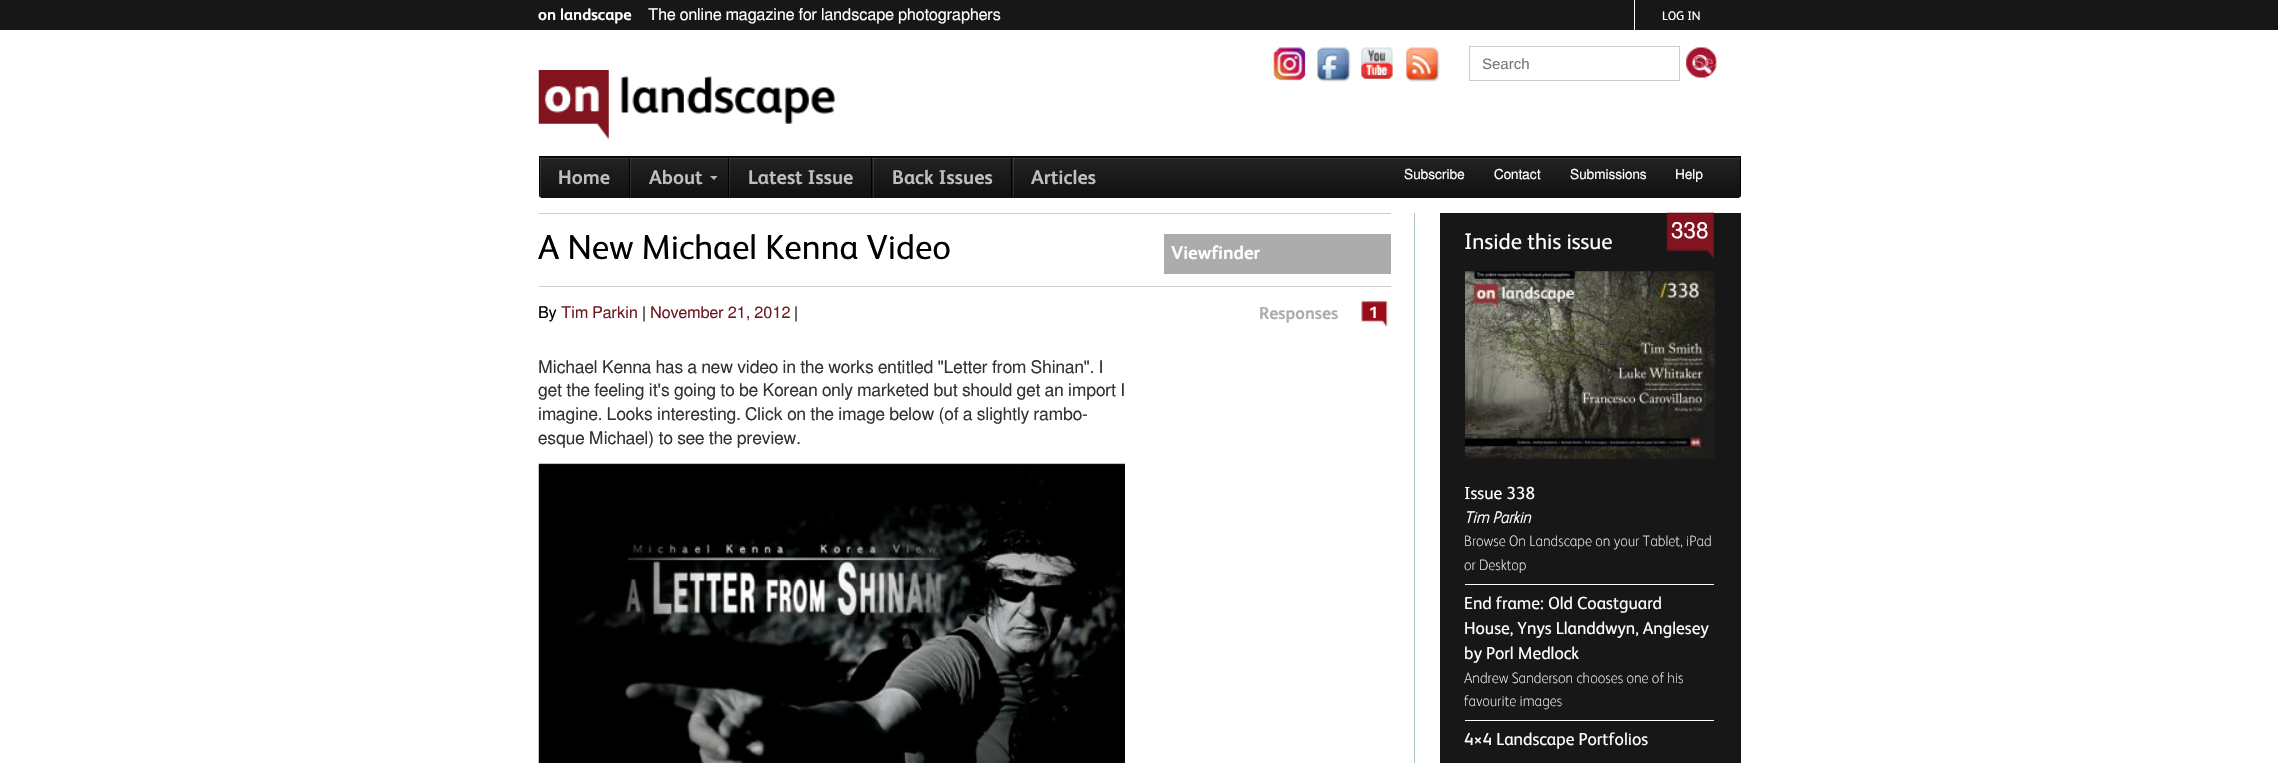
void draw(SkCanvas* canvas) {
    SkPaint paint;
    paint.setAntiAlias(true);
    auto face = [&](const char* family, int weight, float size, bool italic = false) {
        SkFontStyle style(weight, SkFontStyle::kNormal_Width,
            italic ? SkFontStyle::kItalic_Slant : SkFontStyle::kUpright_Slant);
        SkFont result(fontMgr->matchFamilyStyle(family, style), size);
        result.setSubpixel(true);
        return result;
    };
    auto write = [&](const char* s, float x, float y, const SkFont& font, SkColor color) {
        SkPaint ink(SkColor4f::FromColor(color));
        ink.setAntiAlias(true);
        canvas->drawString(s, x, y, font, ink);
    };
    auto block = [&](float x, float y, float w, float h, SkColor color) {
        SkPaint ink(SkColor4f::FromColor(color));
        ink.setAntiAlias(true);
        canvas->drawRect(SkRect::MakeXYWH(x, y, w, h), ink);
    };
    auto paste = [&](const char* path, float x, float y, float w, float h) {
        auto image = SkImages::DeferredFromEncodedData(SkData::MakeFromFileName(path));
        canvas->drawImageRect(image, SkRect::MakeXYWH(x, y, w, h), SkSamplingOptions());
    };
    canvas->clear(SK_ColorWHITE);
    block(0, 0, 2278, 30, SkColorSetRGB(23, 23, 23));
    auto kFont1 = face("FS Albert", 700, 16.25f);
    write("on landscape", 538, 20, kFont1, SK_ColorWHITE);
    auto kFont2 = face("FreeSans", 400, 16.25f);
    write("The online magazine for landscape photographers", 648, 20, kFont2, SK_ColorWHITE);
    block(1634, 0, 1, 30, SK_ColorWHITE);
    auto kFont3 = face("FS Albert", 400, 12.5f);
    write("LOG IN", 1662, 20, kFont3, SK_ColorWHITE);
    paste("pic1.png", 1273, 47, 33, 34);
    paste("pic2.png", 1317, 47, 34, 35);
    paste("pic3.png", 1361, 47, 32, 32);
    paste("pic4.png", 1406, 47, 34, 35);
    paint.setStyle(SkPaint::kStroke_Style);
    paint.setStrokeWidth(1);
    paint.setColor(SkColorSetRGB(204, 204, 204));
    canvas->drawRect(SkRect::MakeXYWH(1469.5f, 46.5f, 210, 34), paint);
    auto kFont4 = face("Liberation Sans", 400, 15);
    write("Search", 1482, 69, kFont4, SkColorSetRGB(117, 117, 117));
    paste("pic5.png", 1686, 47, 31, 31);
    canvas->save();
    canvas->clipRect(SkRect::MakeXYWH(1686, 48, 30, 30));
    auto kFont5 = face("Liberation Sans", 400, 17);
    write("Sea", 1693, 68, kFont5, SkColorSetRGB(196, 101, 119));
    canvas->restore();
    paste("pic6.png", 538, 70, 297, 69);
    block(539, 156, 1202, 2, SkColorSetRGB(23, 23, 23));
    canvas->save();
    canvas->clipPath(SkPathBuilder().moveTo(541.5f, 156).lineTo(1738.5f, 156).cubicTo(1740, 156, 1741, 157, 1741, 158.5f).lineTo(1741, 195.5f).cubicTo(1741, 197, 1740, 198, 1738.5f, 198).lineTo(541.5f, 198).cubicTo(540, 198, 539, 197, 539, 195.5f).lineTo(539, 158.5f).cubicTo(539, 157, 540, 156, 541.5f, 156).close().detach(), true);
    paint.setStyle(SkPaint::kFill_Style);
    {
        const SkColor colors[] = {SkColorSetRGB(35, 35, 35), SkColorSetRGB(16, 16, 16)};
        const float stops[] = {0, 1};
        const SkPoint ends[] = {{1140, 117}, {1140, 158}};
        paint.setShader(SkGradientShader::MakeLinear(ends, colors, stops, 2, SkTileMode::kClamp));
        paint.setAlpha(255);
    }
    canvas->drawRect(SkRect::MakeXYWH(539, 156, 1202, 2), paint);
    {
        const SkColor colors[] = {SkColorSetRGB(35, 35, 35), SkColorSetRGB(16, 16, 16)};
        const float stops[] = {0, 1};
        const SkPoint ends[] = {{1140, 157}, {1140, 198}};
        paint.setShader(SkGradientShader::MakeLinear(ends, colors, stops, 2, SkTileMode::kClamp));
        paint.setAlpha(255);
    }
    canvas->drawPath(SkPathBuilder().moveTo(539, 158).lineTo(1741, 158).lineTo(1741, 195.5f).cubicTo(1741, 197, 1740, 198, 1738.5f, 198).lineTo(541.5f, 198).cubicTo(540, 198, 539, 197, 539, 195.5f).close().detach(), paint);
    canvas->restore();
    paint.setShader(nullptr);
    paint.setColor(SkColorSetRGB(56, 56, 56));
    canvas->drawPath(SkPathBuilder().moveTo(541, 159).lineTo(1739, 159).lineTo(1740, 160).lineTo(1740, 158).lineTo(1739, 158).lineTo(541, 158).lineTo(540, 158).lineTo(540, 160).close().detach(), paint);
    block(540, 156, 1200, 1, SK_ColorBLACK);
    block(1740, 158, 1, 38, SK_ColorBLACK);
    block(539, 158, 1, 38, SK_ColorBLACK);
    block(540, 158, 1, 40, SkColorSetARGB(26, 255, 255, 255));
    auto kFont6 = face("FS Albert", 700, 20);
    write("Home", 558, 184, kFont6, SkColorSetRGB(191, 191, 191));
    block(630, 158, 1, 40, SkColorSetARGB(26, 255, 255, 255));
    block(629, 158, 1, 40, SK_ColorBLACK);
    write("About", 649, 184, kFont6, SkColorSetRGB(191, 191, 191));
    paint.setColor(SkColorSetRGB(187, 187, 187));
    canvas->drawPath(SkPathBuilder().moveTo(710, 176).lineTo(717.5f, 176).lineTo(714, 180).close().detach(), paint);
    block(729, 158, 1, 40, SkColorSetARGB(26, 255, 255, 255));
    block(728, 158, 1, 40, SK_ColorBLACK);
    write("Latest Issue", 748, 184, kFont6, SkColorSetRGB(191, 191, 191));
    block(873, 158, 1, 40, SkColorSetARGB(26, 255, 255, 255));
    block(871, 158, 1, 40, SK_ColorBLACK);
    write("Back Issues", 892, 184, kFont6, SkColorSetRGB(191, 191, 191));
    block(1013, 158, 1, 40, SkColorSetARGB(26, 255, 255, 255));
    block(1011, 158, 1, 40, SK_ColorBLACK);
    write("Articles", 1031, 184, kFont6, SkColorSetRGB(191, 191, 191));
    auto kFont7 = face("FreeSans", 400, 13.75f);
    write("Subscribe", 1404, 179, kFont7, SK_ColorWHITE);
    write("Contact", 1494, 179, kFont7, SK_ColorWHITE);
    write("Submissions", 1570, 179, kFont7, SK_ColorWHITE);
    write("Help", 1675, 179, kFont7, SK_ColorWHITE);
    block(1414, 213, 1, 550, SkColorSetRGB(172, 196, 181));
    block(539, 213, 852, 1, SkColorSetRGB(204, 204, 204));
    block(539, 286, 852, 1, SkColorSetRGB(204, 204, 204));
    auto kFont8 = face("FS Albert", 400, 35);
    write("A New Michael Kenna Video", 538, 259, kFont8, SK_ColorBLACK);
    block(1164, 234, 227, 40, SkColorSetRGB(172, 172, 172));
    auto kFont9 = face("FS Albert", 700, 18.75f);
    write("Viewfinder", 1171, 259, kFont9, SK_ColorWHITE);
    write("By", 538, 318, kFont2, SK_ColorBLACK);
    write("Tim Parkin", 561, 318, kFont2, SkColorSetRGB(111, 26, 33));
    write("|", 642, 318, kFont2, SK_ColorBLACK);
    write("November 21, 2012", 650, 318, kFont2, SkColorSetRGB(111, 26, 33));
    write("|", 794, 318, kFont2, SK_ColorBLACK);
    paste("pic7.png", 1361, 301, 27, 26);
    auto kFont10 = face("FS Albert", 700, 17.5f);
    write("Responses", 1259, 319, kFont10, SkColorSetRGB(172, 172, 172));
    write("1", 1369, 318, kFont1, SK_ColorWHITE);
    auto kFont11 = face("FreeSans", 400, 17.5f);
    write("Michael Kenna has a new video in the works entitled \"Letter from Shinan\". I", 538, 373, kFont11, SkColorSetRGB(51, 51, 51));
    write("get the feeling it's going to be Korean only marketed but should get an import I", 538, 396, kFont11, SkColorSetRGB(51, 51, 51));
    write("imagine. Looks interesting. Click on the image below (of a slightly rambo-", 538, 420, kFont11, SkColorSetRGB(51, 51, 51));
    write("esque Michael) to see the preview.", 538, 444, kFont11, SkColorSetRGB(51, 51, 51));
    paste("pic8.png", 538, 463, 587, 300);
    block(1440, 213, 301, 550, SkColorSetRGB(23, 23, 23));
    paste("pic9.png", 1666, 212, 48, 47);
    auto kFont12 = face("FreeSans", 400, 22.5f);
    write("338", 1671, 238, kFont12, SK_ColorWHITE);
    auto kFont13 = face("FS Albert", 400, 22.5f);
    write("Inside this issue", 1464, 249, kFont13, SK_ColorWHITE);
    paste("pic10.png", 1465, 271, 250, 188);
    block(1465, 584, 249, 1, SK_ColorWHITE);
    auto kFont14 = face("FS Albert", 400, 17.5f);
    write("Issue 338", 1464, 499, kFont14, SK_ColorWHITE);
    auto kFont15 = face("FS Albert", 700, 16.25f, true);
    write("Tim Parkin", 1464, 523, kFont15, SK_ColorWHITE);
    auto kFont16 = face("FS Albert", 100, 15);
    write("Browse On Landscape on your Tablet, iPad", 1464, 546, kFont16, SK_ColorWHITE);
    write("or Desktop", 1464, 570, kFont16, SK_ColorWHITE);
    block(1465, 720, 249, 1, SK_ColorWHITE);
    write("End frame: Old Coastguard", 1464, 609, kFont14, SK_ColorWHITE);
    write("House, Ynys Llanddwyn, Anglesey", 1464, 634, kFont14, SK_ColorWHITE);
    write("by Porl Medlock", 1464, 659, kFont14, SK_ColorWHITE);
    write("Andrew Sanderson chooses one of his", 1464, 683, kFont16, SK_ColorWHITE);
    write("favourite images", 1464, 706, kFont16, SK_ColorWHITE);
    write("4×4 Landscape Portfolios", 1464, 745, kFont14, SK_ColorWHITE);
}
